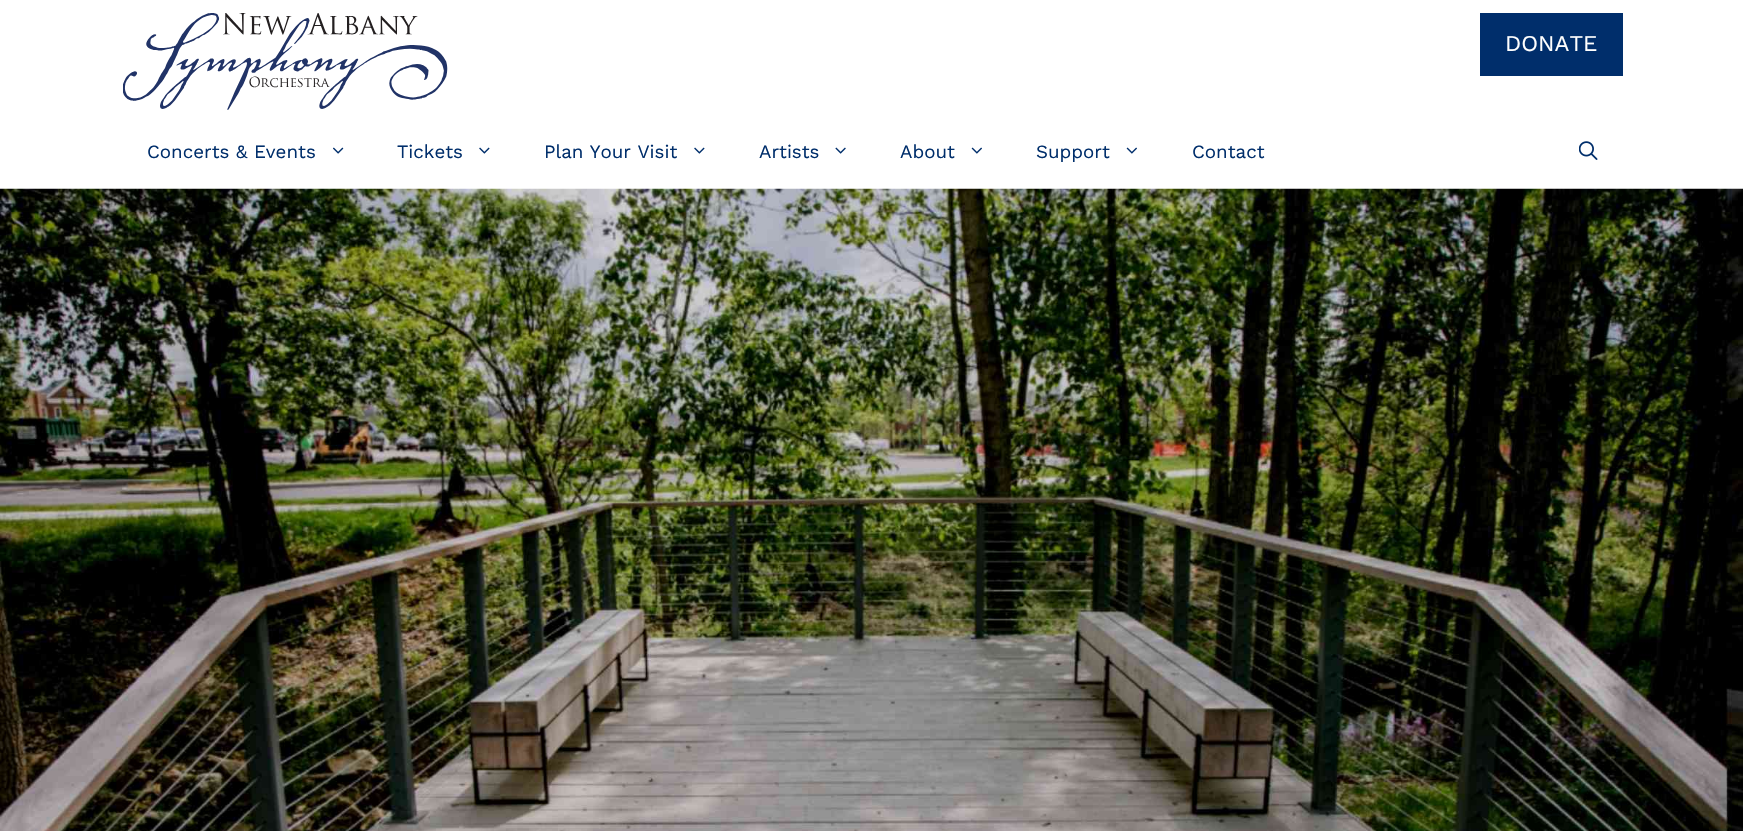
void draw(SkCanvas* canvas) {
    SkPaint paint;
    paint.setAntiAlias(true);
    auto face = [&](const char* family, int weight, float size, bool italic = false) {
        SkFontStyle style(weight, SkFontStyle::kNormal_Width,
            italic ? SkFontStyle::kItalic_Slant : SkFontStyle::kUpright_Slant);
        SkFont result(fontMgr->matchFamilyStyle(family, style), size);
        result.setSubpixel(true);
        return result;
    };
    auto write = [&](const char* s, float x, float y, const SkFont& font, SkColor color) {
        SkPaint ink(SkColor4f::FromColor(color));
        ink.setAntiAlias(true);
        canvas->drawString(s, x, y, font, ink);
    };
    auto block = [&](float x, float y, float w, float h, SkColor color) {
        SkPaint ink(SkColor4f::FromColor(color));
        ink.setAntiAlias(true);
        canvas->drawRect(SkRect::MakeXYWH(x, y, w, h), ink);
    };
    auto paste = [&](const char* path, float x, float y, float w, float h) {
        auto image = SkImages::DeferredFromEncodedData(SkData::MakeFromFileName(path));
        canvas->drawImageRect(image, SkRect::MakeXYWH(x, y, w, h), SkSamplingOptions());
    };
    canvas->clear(SK_ColorWHITE);
    paste("pic1.png", 123, 13, 325, 97);
    block(1480, 13, 143, 63, SkColorSetRGB(0, 46, 107));
    auto kFont1 = face("Work Sans", 400, 22.5f);
    write("DONATE", 1505, 51, kFont1, SK_ColorWHITE);
    auto kFont2 = face("Work Sans", 400, 18.75f);
    write("Concerts & Events", 147, 158, kFont2, SkColorSetRGB(0, 46, 107));
    paste("pic2.png", 333, 147, 11, 7);
    write("Tickets", 397, 158, kFont2, SkColorSetRGB(0, 46, 107));
    paste("pic3.png", 479, 147, 11, 7);
    write("Plan Your Visit", 544, 158, kFont2, SkColorSetRGB(0, 46, 107));
    paste("pic3.png", 694, 147, 11, 7);
    write("Artists", 759, 158, kFont2, SkColorSetRGB(0, 46, 107));
    paste("pic4.png", 835, 147, 11, 7);
    write("About", 900, 158, kFont2, SkColorSetRGB(0, 46, 107));
    paste("pic5.png", 971, 147, 11, 7);
    write("Support", 1036, 158, kFont2, SkColorSetRGB(0, 46, 107));
    paste("pic5.png", 1126, 147, 11, 7);
    write("Contact", 1192, 158, kFont2, SkColorSetRGB(0, 46, 107));
    paste("pic6.png", 1579, 141, 19, 19);
    paste("pic7.png", 0, 188, 1743, 643);
}
